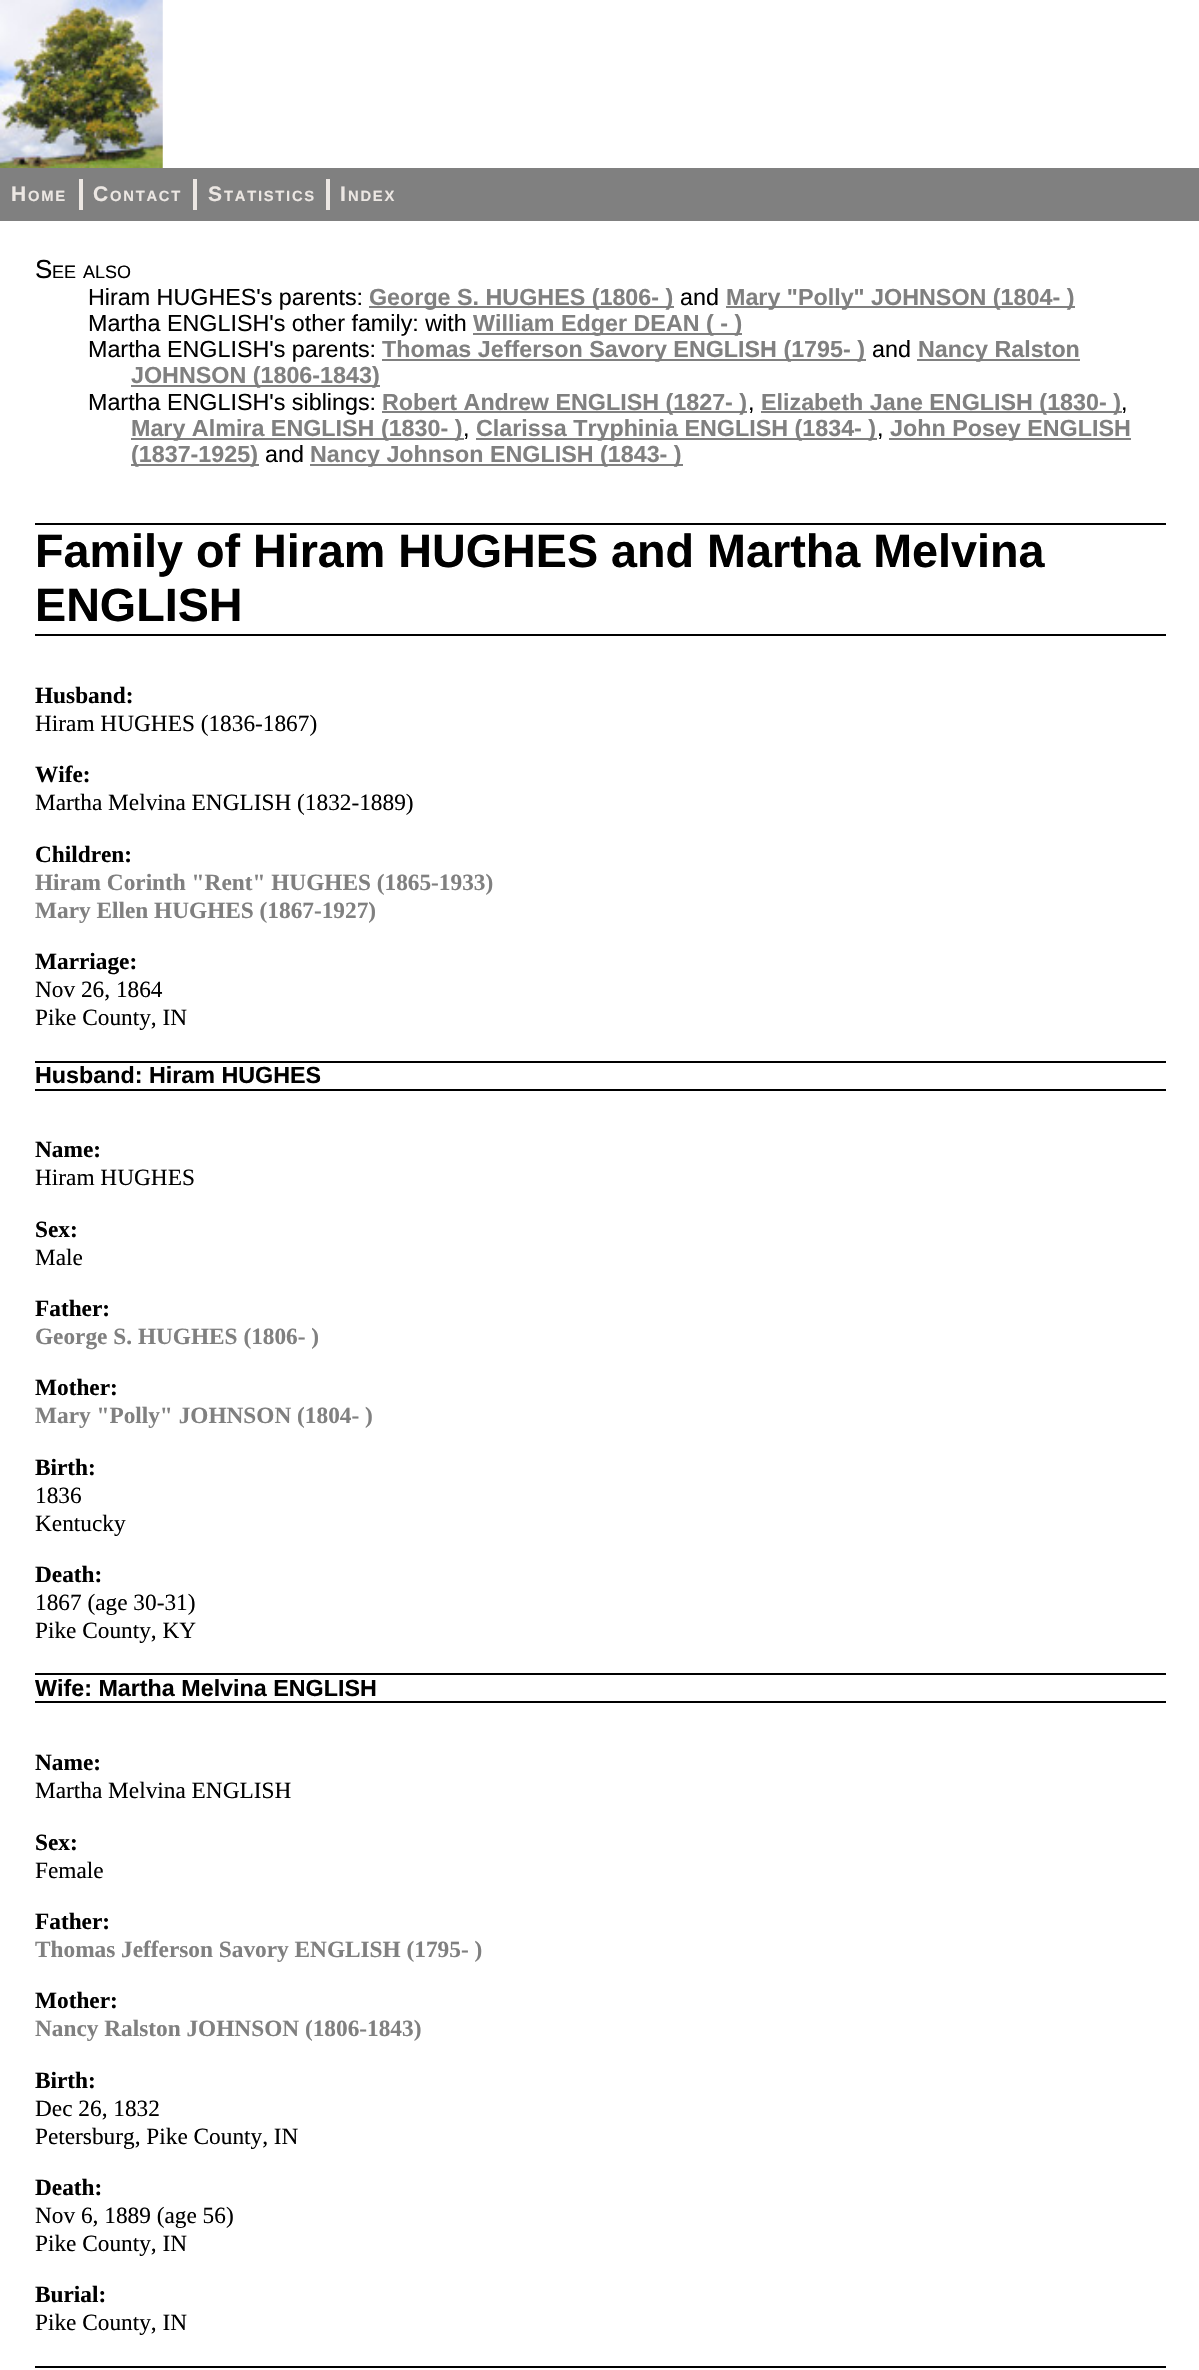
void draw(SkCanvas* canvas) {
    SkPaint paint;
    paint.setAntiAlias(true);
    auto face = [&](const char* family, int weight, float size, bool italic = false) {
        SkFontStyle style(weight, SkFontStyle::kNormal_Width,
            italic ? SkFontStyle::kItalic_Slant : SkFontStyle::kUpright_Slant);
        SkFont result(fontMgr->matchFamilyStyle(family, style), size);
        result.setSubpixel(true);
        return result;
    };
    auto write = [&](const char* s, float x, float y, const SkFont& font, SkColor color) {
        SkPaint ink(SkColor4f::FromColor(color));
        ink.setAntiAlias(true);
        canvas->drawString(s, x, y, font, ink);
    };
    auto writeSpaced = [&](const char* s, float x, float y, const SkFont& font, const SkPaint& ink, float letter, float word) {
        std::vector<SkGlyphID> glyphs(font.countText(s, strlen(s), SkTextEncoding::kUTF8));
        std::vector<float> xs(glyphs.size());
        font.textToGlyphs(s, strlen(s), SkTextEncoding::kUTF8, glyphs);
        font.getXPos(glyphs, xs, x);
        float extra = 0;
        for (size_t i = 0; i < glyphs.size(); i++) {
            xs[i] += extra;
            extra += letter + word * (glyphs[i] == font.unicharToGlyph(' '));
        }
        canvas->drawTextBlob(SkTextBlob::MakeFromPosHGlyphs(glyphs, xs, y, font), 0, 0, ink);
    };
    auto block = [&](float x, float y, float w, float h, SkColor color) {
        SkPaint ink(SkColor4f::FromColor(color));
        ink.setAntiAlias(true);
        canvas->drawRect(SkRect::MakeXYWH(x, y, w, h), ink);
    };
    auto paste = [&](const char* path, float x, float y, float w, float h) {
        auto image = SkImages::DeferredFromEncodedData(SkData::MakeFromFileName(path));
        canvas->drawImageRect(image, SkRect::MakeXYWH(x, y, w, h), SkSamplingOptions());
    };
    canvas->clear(SK_ColorWHITE);
    paste("pic1.png", 0, 0, 163, 168);
    block(0, 168, 1199, 53, SkColorSetRGB(128, 128, 128));
    block(79, 179, 4, 31, SkColorSetRGB(236, 231, 227));
    auto kFont1 = face("Liberation Sans", 700, 21);
    paint.setColor(SkColorSetRGB(236, 231, 227));
    writeSpaced("H", 11, 201, kFont1, paint, 1.75f, 0);
    auto kFont2 = face("Liberation Sans", 700, 14.75f);
    writeSpaced("OME", 28, 201, kFont2, paint, 1.75f, 0);
    block(193, 179, 4, 31, SkColorSetRGB(236, 231, 227));
    writeSpaced("C", 93, 201, kFont1, paint, 1.75f, 0);
    writeSpaced("ONTACT", 110, 201, kFont2, paint, 1.75f, 0);
    block(326, 179, 4, 31, SkColorSetRGB(236, 231, 227));
    writeSpaced("S", 208, 201, kFont1, paint, 1.75f, 0);
    writeSpaced("TATISTICS", 224, 201, kFont2, paint, 1.75f, 0);
    writeSpaced("I", 340, 201, kFont1, paint, 1.75f, 0);
    writeSpaced("NDEX", 348, 201, kFont2, paint, 1.75f, 0);
    auto kFont3 = face("Liberation Sans", 400, 26);
    write("S", 35, 278, kFont3, SK_ColorBLACK);
    auto kFont4 = face("Liberation Sans", 400, 18);
    write("EE", 52, 278, kFont4, SK_ColorBLACK);
    write("ALSO", 83, 278, kFont4, SK_ColorBLACK);
    auto kFont5 = face("Liberation Sans", 400, 23.3f);
    write("Hiram HUGHES's parents:", 88, 305, kFont5, SK_ColorBLACK);
    block(369, 306, 305, 2, SkColorSetRGB(128, 128, 128));
    auto kFont6 = face("Liberation Sans", 700, 23.3f);
    write("George S. HUGHES (1806- )", 369, 305, kFont6, SkColorSetRGB(128, 128, 128));
    write("and", 680, 305, kFont5, SK_ColorBLACK);
    block(726, 306, 349, 2, SkColorSetRGB(128, 128, 128));
    write("Mary \"Polly\" JOHNSON (1804- )", 726, 305, kFont6, SkColorSetRGB(128, 128, 128));
    write("Martha ENGLISH's other family: with", 88, 331, kFont5, SK_ColorBLACK);
    block(473, 333, 269, 2, SkColorSetRGB(128, 128, 128));
    write("William Edger DEAN ( - )", 473, 331, kFont6, SkColorSetRGB(128, 128, 128));
    write("Martha ENGLISH's parents:", 88, 357, kFont5, SK_ColorBLACK);
    block(382, 359, 484, 2, SkColorSetRGB(128, 128, 128));
    write("Thomas Jefferson Savory ENGLISH (1795- )", 382, 357, kFont6, SkColorSetRGB(128, 128, 128));
    write("and", 872, 357, kFont5, SK_ColorBLACK);
    block(917, 359, 163, 2, SkColorSetRGB(128, 128, 128));
    write("Nancy Ralston", 918, 357, kFont6, SkColorSetRGB(128, 128, 128));
    block(131, 385, 249, 2, SkColorSetRGB(128, 128, 128));
    write("JOHNSON (1806-1843)", 131, 383, kFont6, SkColorSetRGB(128, 128, 128));
    write("Martha ENGLISH's siblings:", 88, 410, kFont5, SK_ColorBLACK);
    block(382, 411, 365, 2, SkColorSetRGB(128, 128, 128));
    write("Robert Andrew ENGLISH (1827- )", 382, 410, kFont6, SkColorSetRGB(128, 128, 128));
    write(",", 748, 410, kFont5, SK_ColorBLACK);
    block(761, 411, 361, 2, SkColorSetRGB(128, 128, 128));
    write("Elizabeth Jane ENGLISH (1830- )", 761, 410, kFont6, SkColorSetRGB(128, 128, 128));
    write(",", 1121, 410, kFont5, SK_ColorBLACK);
    block(131, 438, 333, 2, SkColorSetRGB(128, 128, 128));
    write("Mary Almira ENGLISH (1830- )", 131, 436, kFont6, SkColorSetRGB(128, 128, 128));
    write(",", 463, 436, kFont5, SK_ColorBLACK);
    block(476, 438, 401, 2, SkColorSetRGB(128, 128, 128));
    write("Clarissa Tryphinia ENGLISH (1834- )", 476, 436, kFont6, SkColorSetRGB(128, 128, 128));
    write(",", 877, 436, kFont5, SK_ColorBLACK);
    block(889, 438, 242, 2, SkColorSetRGB(128, 128, 128));
    write("John Posey ENGLISH", 890, 436, kFont6, SkColorSetRGB(128, 128, 128));
    block(131, 464, 128, 2, SkColorSetRGB(128, 128, 128));
    write("(1837-1925)", 131, 462, kFont6, SkColorSetRGB(128, 128, 128));
    write("and", 265, 462, kFont5, SK_ColorBLACK);
    block(310, 464, 373, 2, SkColorSetRGB(128, 128, 128));
    write("Nancy Johnson ENGLISH (1843- )", 310, 462, kFont6, SkColorSetRGB(128, 128, 128));
    block(35, 523, 1131, 2, SK_ColorBLACK);
    block(35, 634, 1131, 2, SK_ColorBLACK);
    auto kFont7 = face("Liberation Sans", 700, 46.7f);
    write("Family of Hiram HUGHES and Martha Melvina", 35, 567, kFont7, SK_ColorBLACK);
    write("ENGLISH", 35, 621, kFont7, SK_ColorBLACK);
    auto kFont8 = face("Liberation Serif", 700, 23.3f);
    write("Husband:", 35, 703, kFont8, SK_ColorBLACK);
    auto kFont9 = face("Liberation Serif", 400, 23.3f);
    write("Hiram HUGHES (1836-1867)", 35, 731, kFont9, SK_ColorBLACK);
    write("Wife:", 35, 782, kFont8, SK_ColorBLACK);
    write("Martha Melvina ENGLISH (1832-1889)", 35, 810, kFont9, SK_ColorBLACK);
    write("Children:", 35, 862, kFont8, SK_ColorBLACK);
    write("Hiram Corinth \"Rent\" HUGHES (1865-1933)", 35, 890, kFont8, SkColorSetRGB(128, 128, 128));
    write("Mary Ellen HUGHES (1867-1927)", 35, 918, kFont8, SkColorSetRGB(128, 128, 128));
    write("Marriage:", 35, 969, kFont8, SK_ColorBLACK);
    write("Nov 26, 1864", 35, 997, kFont9, SK_ColorBLACK);
    write("Pike County, IN", 35, 1025, kFont9, SK_ColorBLACK);
    block(35, 1061, 1131, 2, SK_ColorBLACK);
    block(35, 1089, 1131, 2, SK_ColorBLACK);
    write("Husband: Hiram HUGHES", 35, 1083, kFont6, SK_ColorBLACK);
    write("Name:", 35, 1157, kFont8, SK_ColorBLACK);
    write("Hiram HUGHES", 35, 1185, kFont9, SK_ColorBLACK);
    write("Sex:", 35, 1237, kFont8, SK_ColorBLACK);
    write("Male", 35, 1265, kFont9, SK_ColorBLACK);
    write("Father:", 35, 1316, kFont8, SK_ColorBLACK);
    write("George S. HUGHES (1806- )", 35, 1344, kFont8, SkColorSetRGB(128, 128, 128));
    write("Mother:", 35, 1395, kFont8, SK_ColorBLACK);
    write("Mary \"Polly\" JOHNSON (1804- )", 35, 1423, kFont8, SkColorSetRGB(128, 128, 128));
    write("Birth:", 35, 1475, kFont8, SK_ColorBLACK);
    write("1836", 35, 1503, kFont9, SK_ColorBLACK);
    write("Kentucky", 35, 1531, kFont9, SK_ColorBLACK);
    write("Death:", 35, 1582, kFont8, SK_ColorBLACK);
    write("1867 (age 30-31)", 35, 1610, kFont9, SK_ColorBLACK);
    write("Pike County, KY", 35, 1638, kFont9, SK_ColorBLACK);
    block(35, 1673, 1131, 2, SK_ColorBLACK);
    block(35, 1701, 1131, 2, SK_ColorBLACK);
    write("Wife: Martha Melvina ENGLISH", 35, 1696, kFont6, SK_ColorBLACK);
    write("Name:", 35, 1770, kFont8, SK_ColorBLACK);
    write("Martha Melvina ENGLISH", 35, 1798, kFont9, SK_ColorBLACK);
    write("Sex:", 35, 1850, kFont8, SK_ColorBLACK);
    write("Female", 35, 1878, kFont9, SK_ColorBLACK);
    write("Father:", 35, 1929, kFont8, SK_ColorBLACK);
    write("Thomas Jefferson Savory ENGLISH (1795- )", 35, 1957, kFont8, SkColorSetRGB(128, 128, 128));
    write("Mother:", 35, 2008, kFont8, SK_ColorBLACK);
    write("Nancy Ralston JOHNSON (1806-1843)", 35, 2036, kFont8, SkColorSetRGB(128, 128, 128));
    write("Birth:", 35, 2088, kFont8, SK_ColorBLACK);
    write("Dec 26, 1832", 35, 2116, kFont9, SK_ColorBLACK);
    write("Petersburg, Pike County, IN", 35, 2144, kFont9, SK_ColorBLACK);
    write("Death:", 35, 2195, kFont8, SK_ColorBLACK);
    write("Nov 6, 1889 (age 56)", 35, 2223, kFont9, SK_ColorBLACK);
    write("Pike County, IN", 35, 2251, kFont9, SK_ColorBLACK);
    write("Burial:", 35, 2302, kFont8, SK_ColorBLACK);
    write("Pike County, IN", 35, 2330, kFont9, SK_ColorBLACK);
    block(35, 2366, 1131, 2, SK_ColorBLACK);
}
